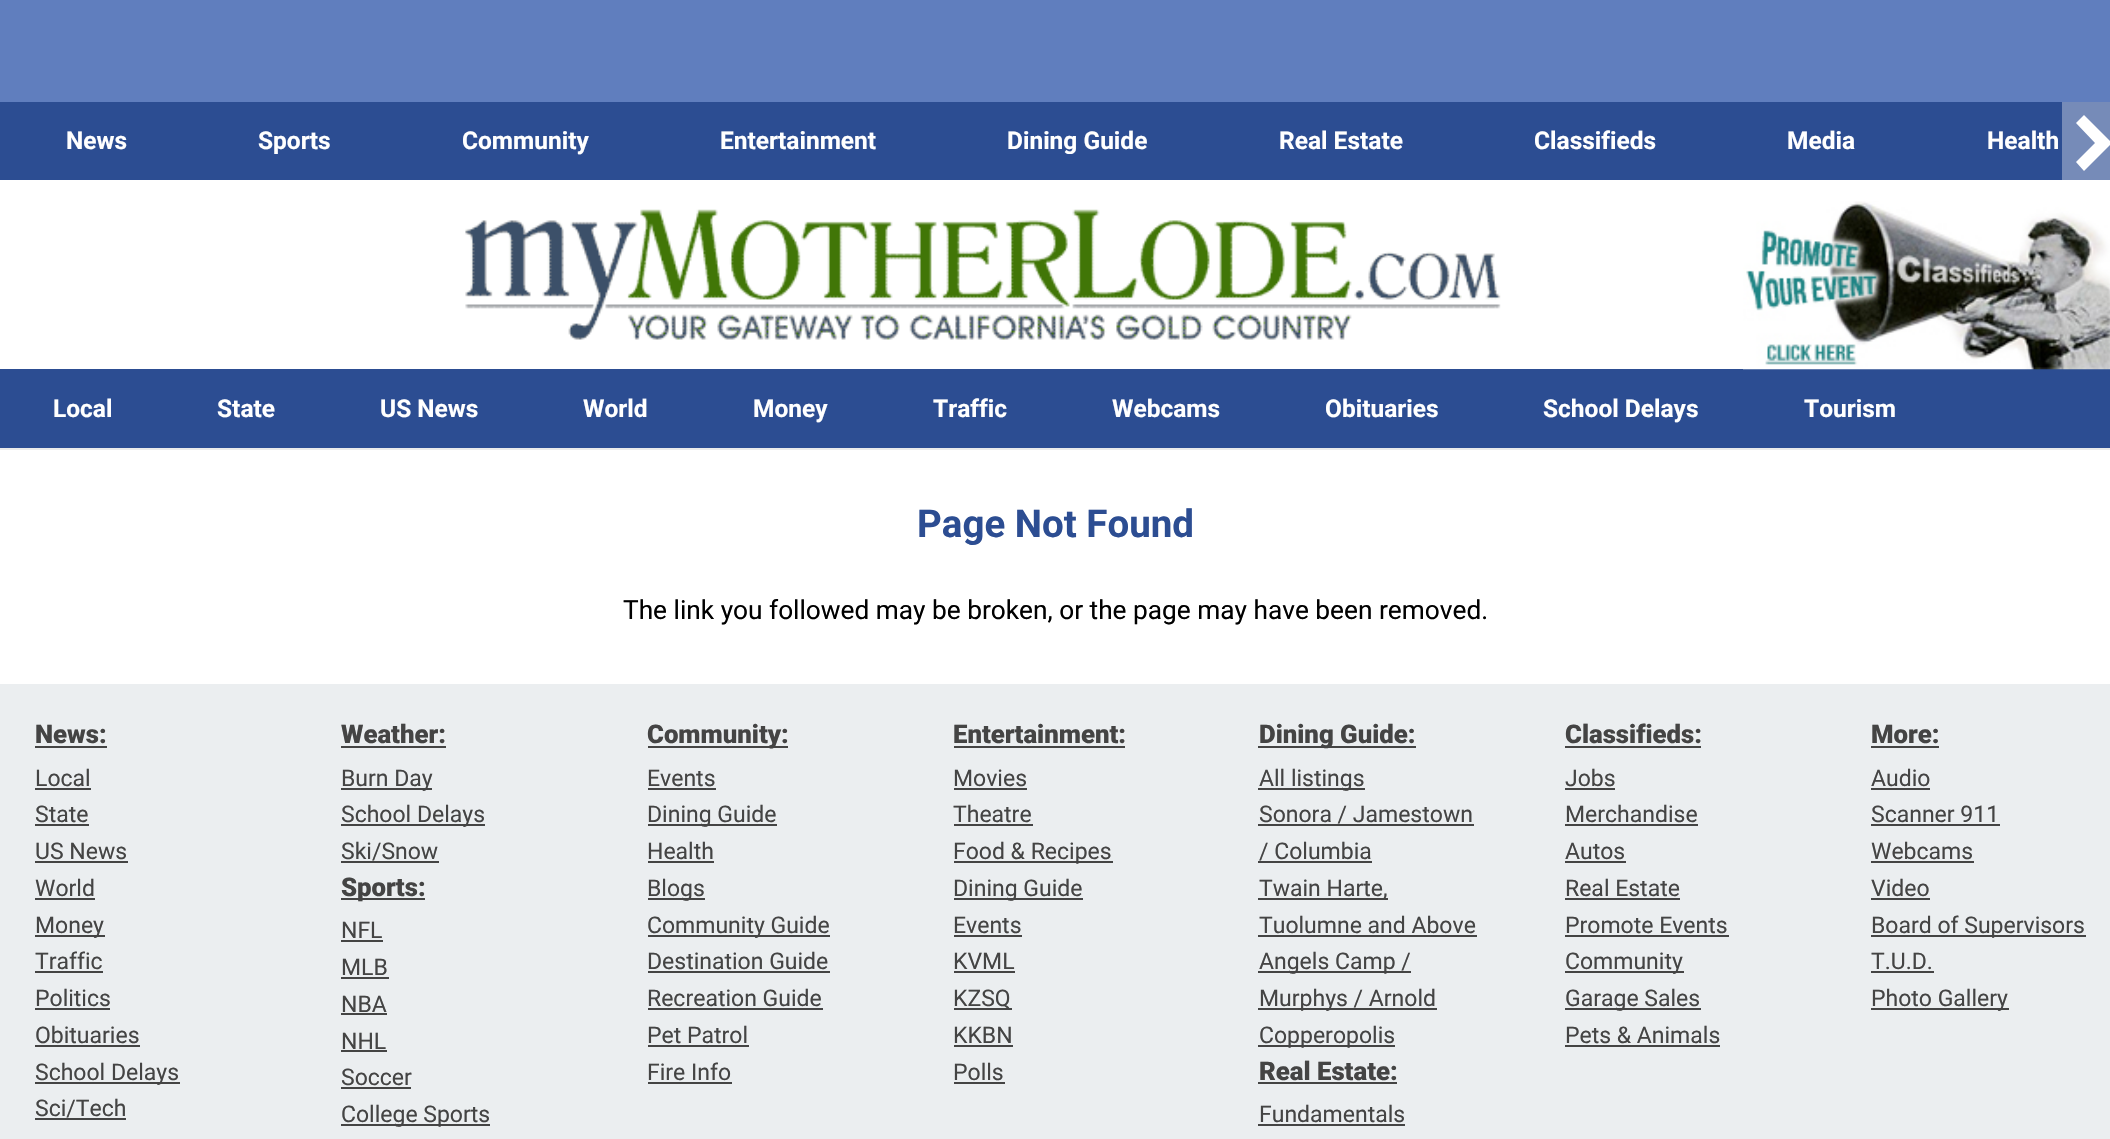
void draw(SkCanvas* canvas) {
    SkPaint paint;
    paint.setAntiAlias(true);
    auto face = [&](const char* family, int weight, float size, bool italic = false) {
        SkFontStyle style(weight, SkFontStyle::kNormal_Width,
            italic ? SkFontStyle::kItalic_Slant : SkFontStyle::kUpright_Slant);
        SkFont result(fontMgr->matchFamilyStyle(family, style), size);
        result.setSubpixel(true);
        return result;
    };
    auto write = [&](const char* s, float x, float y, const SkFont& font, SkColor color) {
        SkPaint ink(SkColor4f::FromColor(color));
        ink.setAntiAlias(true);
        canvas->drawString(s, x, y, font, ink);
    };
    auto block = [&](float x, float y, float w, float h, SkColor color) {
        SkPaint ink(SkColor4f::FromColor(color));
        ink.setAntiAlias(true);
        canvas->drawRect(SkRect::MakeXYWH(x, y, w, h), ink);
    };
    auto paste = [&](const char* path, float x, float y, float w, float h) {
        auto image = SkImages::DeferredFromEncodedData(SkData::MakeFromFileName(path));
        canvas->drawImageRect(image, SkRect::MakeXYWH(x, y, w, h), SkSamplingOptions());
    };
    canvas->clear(SkColorSetRGB(96, 126, 190));
    block(0, 180, 2110, 504, SK_ColorWHITE);
    block(0, 102, 2062, 78, SkColorSetRGB(44, 77, 146));
    auto kFont1 = face("Roboto", 700, 24.5f);
    write("News", 66, 149, kFont1, SK_ColorWHITE);
    write("Sports", 258, 149, kFont1, SK_ColorWHITE);
    write("Community", 462, 149, kFont1, SK_ColorWHITE);
    write("Entertainment", 720, 149, kFont1, SK_ColorWHITE);
    write("Dining Guide", 1007, 149, kFont1, SK_ColorWHITE);
    write("Real Estate", 1279, 149, kFont1, SK_ColorWHITE);
    write("Classifieds", 1534, 149, kFont1, SK_ColorWHITE);
    write("Media", 1787, 149, kFont1, SK_ColorWHITE);
    write("Health", 1987, 149, kFont1, SK_ColorWHITE);
    block(2062, 102, 48, 78, SkColorSetRGB(118, 139, 184));
    paint.setColor(SK_ColorWHITE);
    canvas->drawPath(SkPathBuilder().moveTo(2076, 162).lineTo(2095, 143).lineTo(2076, 123).lineTo(2084, 115).lineTo(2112, 143).lineTo(2084, 171).close().detach(), paint);
    paste("pic1.png", 465, 209, 1036, 131);
    block(0, 369, 2110, 79, SkColorSetRGB(44, 77, 146));
    paste("pic2.png", 1743, 201, 367, 169);
    paint.setColor(SkColorSetRGB(235, 235, 235));
    canvas->drawPath(SkPathBuilder().moveTo(0, 448).lineTo(0, 450).lineTo(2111, 450).lineTo(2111, 371).lineTo(2110, 371).lineTo(2110, 448).close().detach(), paint);
    write("Local", 53, 417, kFont1, SK_ColorWHITE);
    write("State", 217, 417, kFont1, SK_ColorWHITE);
    write("US News", 380, 417, kFont1, SK_ColorWHITE);
    write("World", 583, 417, kFont1, SK_ColorWHITE);
    write("Money", 753, 417, kFont1, SK_ColorWHITE);
    write("Traffic", 933, 417, kFont1, SK_ColorWHITE);
    write("Webcams", 1112, 417, kFont1, SK_ColorWHITE);
    write("Obituaries", 1325, 417, kFont1, SK_ColorWHITE);
    write("School Delays", 1543, 417, kFont1, SK_ColorWHITE);
    write("Tourism", 1804, 417, kFont1, SK_ColorWHITE);
    auto kFont2 = face("Roboto", 700, 38.5f);
    write("Page Not Found", 917, 537, kFont2, SkColorSetRGB(44, 77, 146));
    auto kFont3 = face("Roboto", 400, 26.25f);
    write("The link you followed may be broken, or the page may have been removed.", 623, 619, kFont3, SK_ColorBLACK);
    block(0, 684, 2110, 455, SkColorSetRGB(235, 238, 240));
    auto kFont4 = face("Roboto", 900, 25.75f);
    write("News:", 35, 743, kFont4, SkColorSetRGB(68, 68, 68));
    block(35, 746, 72, 2, SkColorSetRGB(68, 68, 68));
    auto kFont5 = face("Roboto", 400, 23);
    write("Local", 35, 786, kFont5, SkColorSetRGB(68, 68, 68));
    block(35, 788, 56, 2, SkColorSetRGB(68, 68, 68));
    write("State", 35, 822, kFont5, SkColorSetRGB(68, 68, 68));
    block(35, 824, 54, 2, SkColorSetRGB(68, 68, 68));
    write("US News", 35, 859, kFont5, SkColorSetRGB(68, 68, 68));
    block(35, 861, 93, 2, SkColorSetRGB(68, 68, 68));
    write("World", 35, 896, kFont5, SkColorSetRGB(68, 68, 68));
    block(35, 898, 60, 2, SkColorSetRGB(68, 68, 68));
    block(35, 935, 70, 2, SkColorSetRGB(68, 68, 68));
    write("Money", 35, 933, kFont5, SkColorSetRGB(68, 68, 68));
    write("Traffic", 35, 969, kFont5, SkColorSetRGB(68, 68, 68));
    block(35, 971, 68, 2, SkColorSetRGB(68, 68, 68));
    write("Politics", 35, 1006, kFont5, SkColorSetRGB(68, 68, 68));
    block(35, 1008, 75, 2, SkColorSetRGB(68, 68, 68));
    write("Obituaries", 35, 1043, kFont5, SkColorSetRGB(68, 68, 68));
    block(35, 1045, 105, 2, SkColorSetRGB(68, 68, 68));
    block(35, 1082, 145, 2, SkColorSetRGB(68, 68, 68));
    write("School Delays", 35, 1080, kFont5, SkColorSetRGB(68, 68, 68));
    write("Sci/Tech", 35, 1116, kFont5, SkColorSetRGB(68, 68, 68));
    block(35, 1118, 91, 2, SkColorSetRGB(68, 68, 68));
    write("Weather:", 341, 743, kFont4, SkColorSetRGB(68, 68, 68));
    block(341, 746, 105, 2, SkColorSetRGB(68, 68, 68));
    block(341, 788, 91, 2, SkColorSetRGB(68, 68, 68));
    write("Burn Day", 341, 786, kFont5, SkColorSetRGB(68, 68, 68));
    block(341, 824, 144, 2, SkColorSetRGB(68, 68, 68));
    write("School Delays", 341, 822, kFont5, SkColorSetRGB(68, 68, 68));
    write("Ski/Snow", 341, 859, kFont5, SkColorSetRGB(68, 68, 68));
    block(341, 861, 98, 2, SkColorSetRGB(68, 68, 68));
    block(341, 898, 84, 2, SkColorSetRGB(68, 68, 68));
    write("Sports:", 341, 896, kFont4, SkColorSetRGB(68, 68, 68));
    write("NFL", 341, 938, kFont5, SkColorSetRGB(68, 68, 68));
    block(341, 940, 42, 2, SkColorSetRGB(68, 68, 68));
    write("MLB", 341, 975, kFont5, SkColorSetRGB(68, 68, 68));
    block(341, 977, 48, 2, SkColorSetRGB(68, 68, 68));
    write("NBA", 341, 1012, kFont5, SkColorSetRGB(68, 68, 68));
    block(341, 1013, 46, 2, SkColorSetRGB(68, 68, 68));
    write("NHL", 341, 1049, kFont5, SkColorSetRGB(68, 68, 68));
    block(341, 1050, 46, 2, SkColorSetRGB(68, 68, 68));
    write("Soccer", 341, 1085, kFont5, SkColorSetRGB(68, 68, 68));
    block(341, 1087, 70, 2, SkColorSetRGB(68, 68, 68));
    block(341, 1124, 149, 2, SkColorSetRGB(68, 68, 68));
    write("College Sports", 341, 1122, kFont5, SkColorSetRGB(68, 68, 68));
    block(648, 746, 140, 2, SkColorSetRGB(68, 68, 68));
    write("Community:", 647, 743, kFont4, SkColorSetRGB(68, 68, 68));
    write("Events", 647, 786, kFont5, SkColorSetRGB(68, 68, 68));
    block(648, 788, 68, 2, SkColorSetRGB(68, 68, 68));
    block(648, 824, 129, 2, SkColorSetRGB(68, 68, 68));
    write("Dining Guide", 647, 822, kFont5, SkColorSetRGB(68, 68, 68));
    write("Health", 647, 859, kFont5, SkColorSetRGB(68, 68, 68));
    block(648, 861, 66, 2, SkColorSetRGB(68, 68, 68));
    block(648, 898, 57, 2, SkColorSetRGB(68, 68, 68));
    write("Blogs", 647, 896, kFont5, SkColorSetRGB(68, 68, 68));
    block(648, 935, 182, 2, SkColorSetRGB(68, 68, 68));
    write("Community Guide", 647, 933, kFont5, SkColorSetRGB(68, 68, 68));
    write("Destination Guide", 647, 969, kFont5, SkColorSetRGB(68, 68, 68));
    block(648, 971, 182, 2, SkColorSetRGB(68, 68, 68));
    write("Recreation Guide", 647, 1006, kFont5, SkColorSetRGB(68, 68, 68));
    block(648, 1008, 175, 2, SkColorSetRGB(68, 68, 68));
    write("Pet Patrol", 647, 1043, kFont5, SkColorSetRGB(68, 68, 68));
    block(648, 1045, 101, 2, SkColorSetRGB(68, 68, 68));
    write("Fire Info", 647, 1080, kFont5, SkColorSetRGB(68, 68, 68));
    block(648, 1082, 84, 2, SkColorSetRGB(68, 68, 68));
    write("Entertainment:", 953, 743, kFont4, SkColorSetRGB(68, 68, 68));
    block(954, 746, 171, 2, SkColorSetRGB(68, 68, 68));
    write("Movies", 953, 786, kFont5, SkColorSetRGB(68, 68, 68));
    block(954, 788, 73, 2, SkColorSetRGB(68, 68, 68));
    write("Theatre", 953, 822, kFont5, SkColorSetRGB(68, 68, 68));
    block(954, 824, 79, 2, SkColorSetRGB(68, 68, 68));
    block(954, 861, 159, 2, SkColorSetRGB(68, 68, 68));
    write("Food & Recipes", 953, 859, kFont5, SkColorSetRGB(68, 68, 68));
    block(954, 898, 129, 2, SkColorSetRGB(68, 68, 68));
    write("Dining Guide", 953, 896, kFont5, SkColorSetRGB(68, 68, 68));
    write("Events", 953, 933, kFont5, SkColorSetRGB(68, 68, 68));
    block(954, 935, 68, 2, SkColorSetRGB(68, 68, 68));
    write("KVML", 953, 969, kFont5, SkColorSetRGB(68, 68, 68));
    block(954, 971, 61, 2, SkColorSetRGB(68, 68, 68));
    block(954, 1008, 58, 2, SkColorSetRGB(68, 68, 68));
    write("KZSQ", 953, 1006, kFont5, SkColorSetRGB(68, 68, 68));
    write("KKBN", 953, 1043, kFont5, SkColorSetRGB(68, 68, 68));
    block(954, 1045, 59, 2, SkColorSetRGB(68, 68, 68));
    write("Polls", 953, 1080, kFont5, SkColorSetRGB(68, 68, 68));
    block(954, 1082, 51, 2, SkColorSetRGB(68, 68, 68));
    block(1258, 746, 158, 2, SkColorSetRGB(68, 68, 68));
    write("Dining Guide:", 1259, 743, kFont4, SkColorSetRGB(68, 68, 68));
    block(1258, 788, 107, 2, SkColorSetRGB(68, 68, 68));
    write("All listings", 1259, 786, kFont5, SkColorSetRGB(68, 68, 68));
    write("Sonora / Jamestown", 1259, 822, kFont5, SkColorSetRGB(68, 68, 68));
    block(1258, 824, 216, 2, SkColorSetRGB(68, 68, 68));
    write("/ Columbia", 1259, 859, kFont5, SkColorSetRGB(68, 68, 68));
    block(1258, 861, 114, 2, SkColorSetRGB(68, 68, 68));
    block(1258, 898, 130, 2, SkColorSetRGB(68, 68, 68));
    write("Twain Harte,", 1259, 896, kFont5, SkColorSetRGB(68, 68, 68));
    write("Tuolumne and Above", 1259, 933, kFont5, SkColorSetRGB(68, 68, 68));
    block(1258, 935, 219, 2, SkColorSetRGB(68, 68, 68));
    block(1258, 971, 153, 2, SkColorSetRGB(68, 68, 68));
    write("Angels Camp /", 1259, 969, kFont5, SkColorSetRGB(68, 68, 68));
    block(1258, 1008, 179, 2, SkColorSetRGB(68, 68, 68));
    write("Murphys / Arnold", 1259, 1006, kFont5, SkColorSetRGB(68, 68, 68));
    block(1258, 1045, 137, 2, SkColorSetRGB(68, 68, 68));
    write("Copperopolis", 1259, 1043, kFont5, SkColorSetRGB(68, 68, 68));
    write("Real Estate:", 1259, 1080, kFont4, SkColorSetRGB(68, 68, 68));
    block(1258, 1082, 139, 2, SkColorSetRGB(68, 68, 68));
    write("Fundamentals", 1259, 1122, kFont5, SkColorSetRGB(68, 68, 68));
    block(1258, 1124, 147, 2, SkColorSetRGB(68, 68, 68));
    write("Classifieds:", 1565, 743, kFont4, SkColorSetRGB(68, 68, 68));
    block(1565, 746, 136, 2, SkColorSetRGB(68, 68, 68));
    write("Jobs", 1565, 786, kFont5, SkColorSetRGB(68, 68, 68));
    block(1565, 788, 50, 2, SkColorSetRGB(68, 68, 68));
    write("Merchandise", 1565, 822, kFont5, SkColorSetRGB(68, 68, 68));
    block(1565, 824, 133, 2, SkColorSetRGB(68, 68, 68));
    write("Autos", 1565, 859, kFont5, SkColorSetRGB(68, 68, 68));
    block(1565, 861, 61, 2, SkColorSetRGB(68, 68, 68));
    write("Real Estate", 1565, 896, kFont5, SkColorSetRGB(68, 68, 68));
    block(1565, 898, 115, 2, SkColorSetRGB(68, 68, 68));
    write("Promote Events", 1565, 933, kFont5, SkColorSetRGB(68, 68, 68));
    block(1565, 935, 164, 2, SkColorSetRGB(68, 68, 68));
    block(1565, 971, 119, 2, SkColorSetRGB(68, 68, 68));
    write("Community", 1565, 969, kFont5, SkColorSetRGB(68, 68, 68));
    block(1565, 1008, 136, 2, SkColorSetRGB(68, 68, 68));
    write("Garage Sales", 1565, 1006, kFont5, SkColorSetRGB(68, 68, 68));
    write("Pets & Animals", 1565, 1043, kFont5, SkColorSetRGB(68, 68, 68));
    block(1565, 1045, 155, 2, SkColorSetRGB(68, 68, 68));
    write("More:", 1871, 743, kFont4, SkColorSetRGB(68, 68, 68));
    block(1871, 746, 68, 2, SkColorSetRGB(68, 68, 68));
    write("Audio", 1871, 786, kFont5, SkColorSetRGB(68, 68, 68));
    block(1871, 788, 59, 2, SkColorSetRGB(68, 68, 68));
    write("Scanner 911", 1871, 822, kFont5, SkColorSetRGB(68, 68, 68));
    block(1871, 824, 129, 2, SkColorSetRGB(68, 68, 68));
    write("Webcams", 1871, 859, kFont5, SkColorSetRGB(68, 68, 68));
    block(1871, 861, 103, 2, SkColorSetRGB(68, 68, 68));
    write("Video", 1871, 896, kFont5, SkColorSetRGB(68, 68, 68));
    block(1871, 898, 59, 2, SkColorSetRGB(68, 68, 68));
    block(1871, 935, 215, 2, SkColorSetRGB(68, 68, 68));
    write("Board of Supervisors", 1871, 933, kFont5, SkColorSetRGB(68, 68, 68));
    write("T.U.D.", 1871, 969, kFont5, SkColorSetRGB(68, 68, 68));
    block(1871, 971, 63, 2, SkColorSetRGB(68, 68, 68));
    block(1871, 1008, 138, 2, SkColorSetRGB(68, 68, 68));
    write("Photo Gallery", 1871, 1006, kFont5, SkColorSetRGB(68, 68, 68));
}
